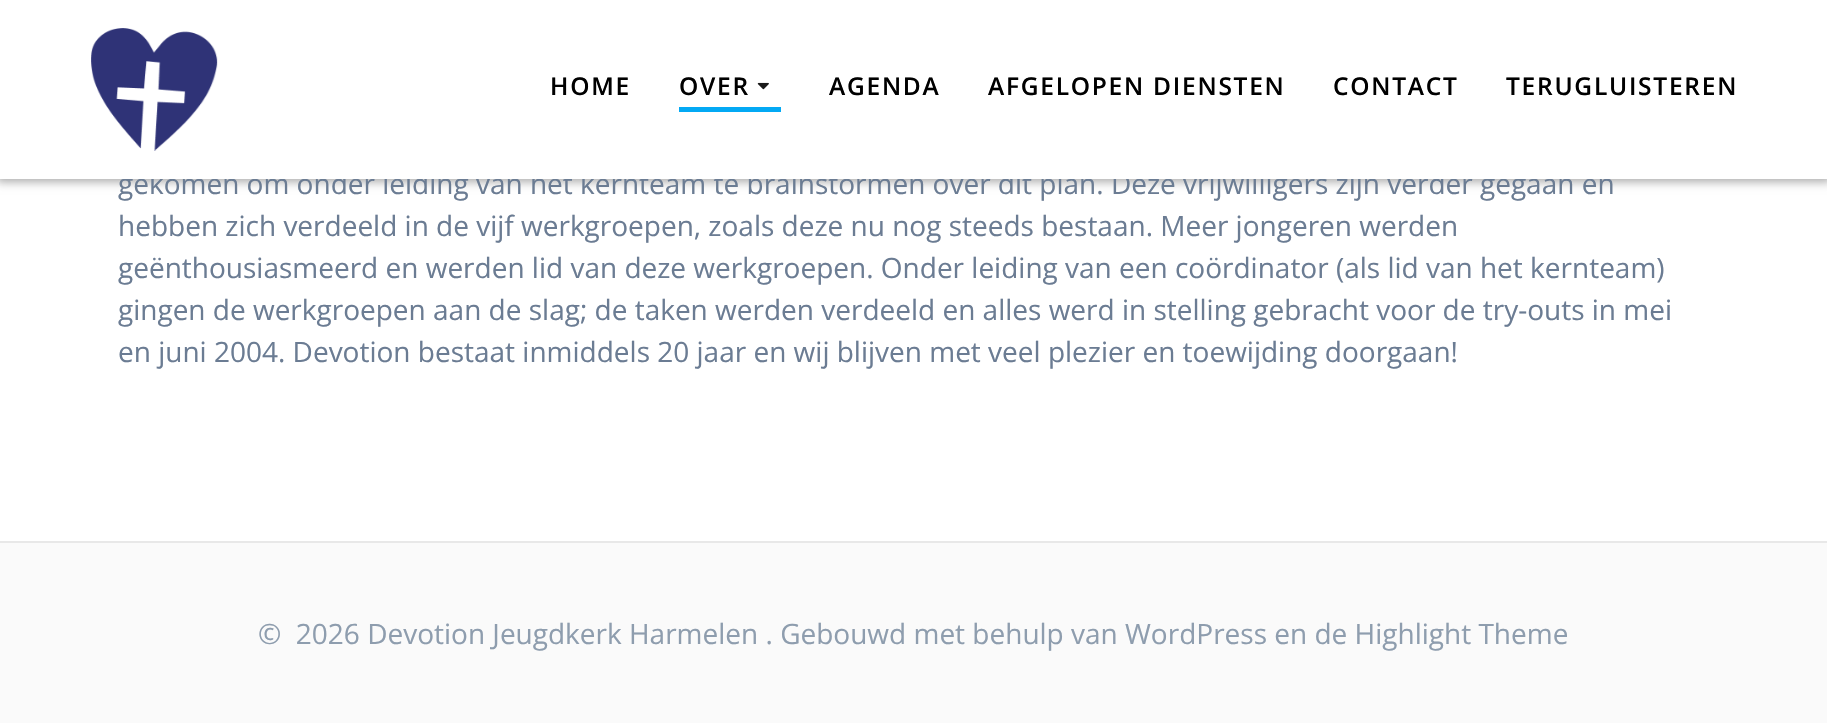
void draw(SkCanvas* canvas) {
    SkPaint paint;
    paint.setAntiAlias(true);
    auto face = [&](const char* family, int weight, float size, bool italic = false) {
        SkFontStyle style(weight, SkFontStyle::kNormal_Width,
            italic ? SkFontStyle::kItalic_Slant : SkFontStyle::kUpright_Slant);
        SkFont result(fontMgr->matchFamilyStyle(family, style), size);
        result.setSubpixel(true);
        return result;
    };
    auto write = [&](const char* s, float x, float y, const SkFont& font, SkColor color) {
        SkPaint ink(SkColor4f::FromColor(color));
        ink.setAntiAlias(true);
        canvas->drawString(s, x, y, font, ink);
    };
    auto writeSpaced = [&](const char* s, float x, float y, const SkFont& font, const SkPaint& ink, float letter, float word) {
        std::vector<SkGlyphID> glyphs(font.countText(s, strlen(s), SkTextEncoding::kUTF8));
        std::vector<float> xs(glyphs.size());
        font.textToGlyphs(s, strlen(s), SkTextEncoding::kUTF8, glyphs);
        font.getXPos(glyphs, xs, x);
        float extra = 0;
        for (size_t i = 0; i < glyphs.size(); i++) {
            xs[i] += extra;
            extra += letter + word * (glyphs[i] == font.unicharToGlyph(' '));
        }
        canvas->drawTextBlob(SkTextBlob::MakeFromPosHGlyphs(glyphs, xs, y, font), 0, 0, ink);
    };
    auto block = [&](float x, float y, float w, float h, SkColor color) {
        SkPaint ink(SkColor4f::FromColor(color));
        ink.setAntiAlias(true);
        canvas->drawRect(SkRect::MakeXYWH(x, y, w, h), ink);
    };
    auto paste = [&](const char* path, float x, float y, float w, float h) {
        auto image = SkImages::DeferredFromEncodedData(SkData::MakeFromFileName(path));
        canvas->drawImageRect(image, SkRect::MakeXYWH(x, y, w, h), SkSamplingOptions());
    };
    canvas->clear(SK_ColorWHITE);
    paint.setColor(SkColorSetARGB(84, 0, 0, 0));
    paint.setMaskFilter(SkMaskFilter::MakeBlur(kNormal_SkBlurStyle, 4.5f));
    canvas->drawRect(SkRect::MakeXYWH(-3, -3, 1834, 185), paint);
    paint.setMaskFilter(nullptr);
    auto kFont1 = face("Open Sans", 400, 28);
    write("gekomen om onder leiding van het kernteam te brainstormen over dit plan. Deze vrijwilligers zijn verder gegaan en", 118, 194, kFont1, SkColorSetRGB(107, 124, 147));
    block(0, 0, 1827, 179, SK_ColorWHITE);
    paste("pic1.png", 91, 28, 127, 123);
    auto kFont2 = face("Open Sans", 600, 24.5f);
    paint.setColor(SK_ColorBLACK);
    writeSpaced("HOME", 550, 95, kFont2, paint, 1.75f, 0);
    block(679, 107, 102, 5, SkColorSetRGB(3, 169, 244));
    writeSpaced("OVER", 679, 95, kFont2, paint, 1.75f, 0);
    paste("pic2.png", 757, 82, 12, 8);
    writeSpaced("AGENDA", 829, 95, kFont2, paint, 1.75f, 0);
    writeSpaced("AFGELOPEN DIENSTEN", 988, 95, kFont2, paint, 1.75f, 0);
    writeSpaced("CONTACT", 1333, 95, kFont2, paint, 1.75f, 0);
    writeSpaced("TERUGLUISTEREN", 1506, 95, kFont2, paint, 1.75f, 0);
    write("hebben zich verdeeld in de vijf werkgroepen, zoals deze nu nog steeds bestaan. Meer jongeren werden", 118, 236, kFont1, SkColorSetRGB(107, 124, 147));
    write("geënthousiasmeerd en werden lid van deze werkgroepen. Onder leiding van een coördinator (als lid van het kernteam)", 118, 278, kFont1, SkColorSetRGB(107, 124, 147));
    write("gingen de werkgroepen aan de slag; de taken werden verdeeld en alles werd in stelling gebracht voor de try-outs in mei", 118, 320, kFont1, SkColorSetRGB(107, 124, 147));
    write("en juni 2004. Devotion bestaat inmiddels 20 jaar en wij blijven met veel plezier en toewijding doorgaan!", 118, 362, kFont1, SkColorSetRGB(107, 124, 147));
    block(0, 543, 1827, 180, SkColorSetRGB(250, 250, 250));
    block(0, 541, 1827, 2, SkColorSetRGB(232, 232, 232));
    write("©  2026 Devotion Jeugdkerk Harmelen . Gebouwd met behulp van WordPress en de Highlight Theme", 258, 644, kFont1, SkColorSetRGB(142, 157, 174));
}
